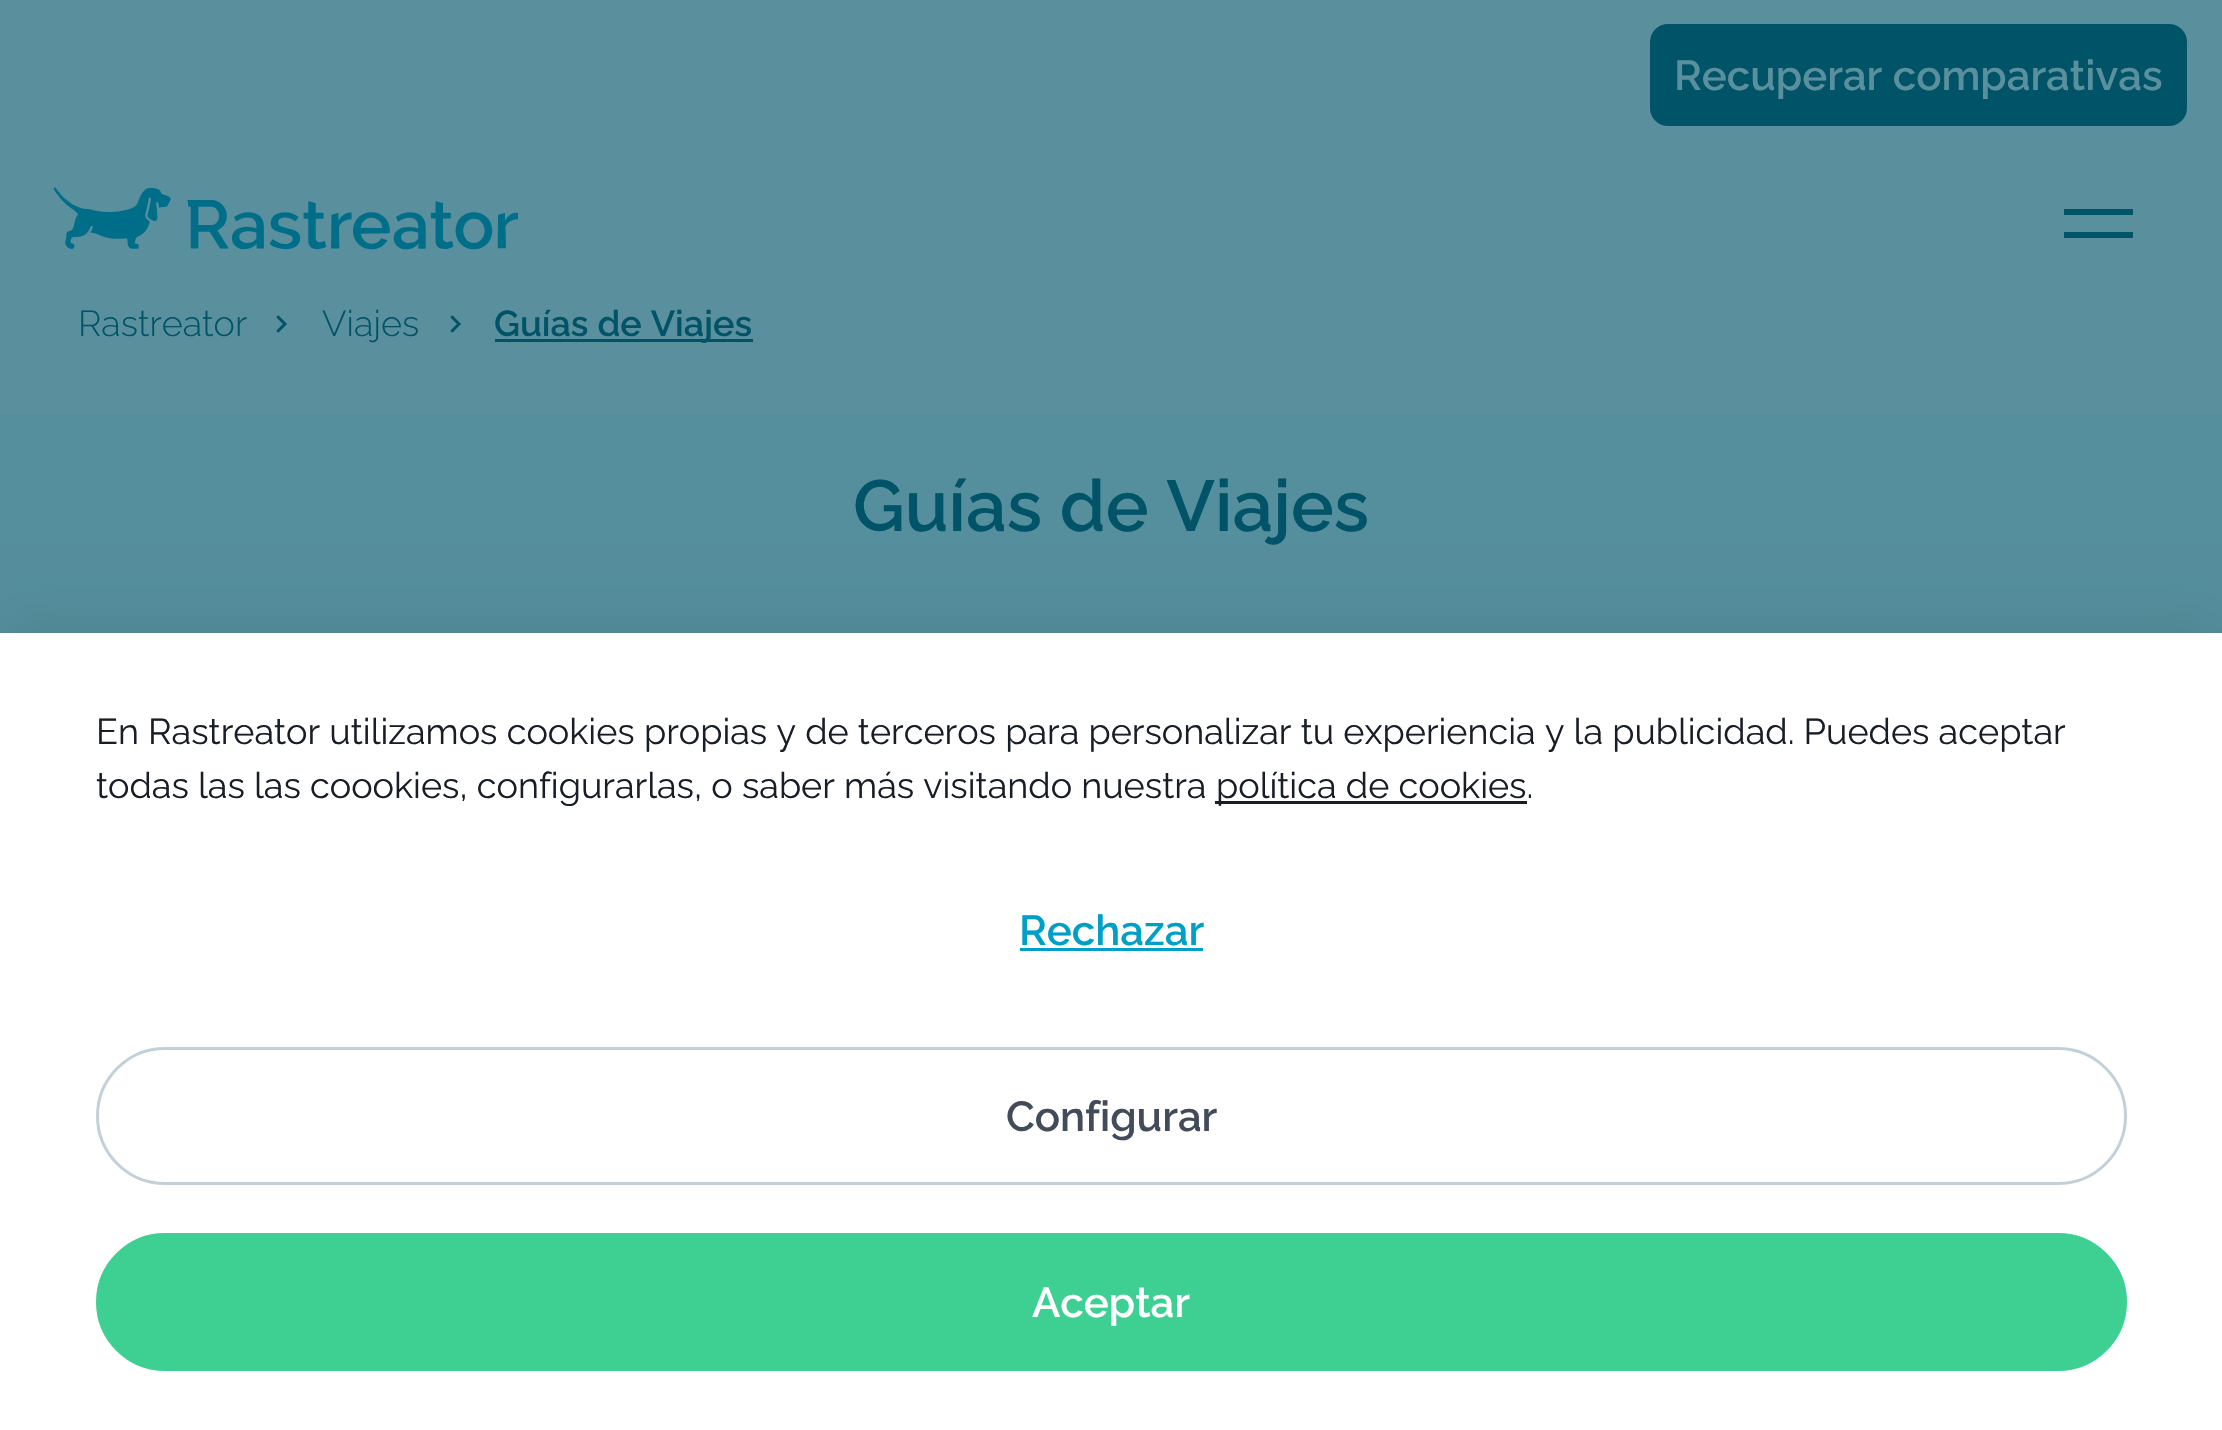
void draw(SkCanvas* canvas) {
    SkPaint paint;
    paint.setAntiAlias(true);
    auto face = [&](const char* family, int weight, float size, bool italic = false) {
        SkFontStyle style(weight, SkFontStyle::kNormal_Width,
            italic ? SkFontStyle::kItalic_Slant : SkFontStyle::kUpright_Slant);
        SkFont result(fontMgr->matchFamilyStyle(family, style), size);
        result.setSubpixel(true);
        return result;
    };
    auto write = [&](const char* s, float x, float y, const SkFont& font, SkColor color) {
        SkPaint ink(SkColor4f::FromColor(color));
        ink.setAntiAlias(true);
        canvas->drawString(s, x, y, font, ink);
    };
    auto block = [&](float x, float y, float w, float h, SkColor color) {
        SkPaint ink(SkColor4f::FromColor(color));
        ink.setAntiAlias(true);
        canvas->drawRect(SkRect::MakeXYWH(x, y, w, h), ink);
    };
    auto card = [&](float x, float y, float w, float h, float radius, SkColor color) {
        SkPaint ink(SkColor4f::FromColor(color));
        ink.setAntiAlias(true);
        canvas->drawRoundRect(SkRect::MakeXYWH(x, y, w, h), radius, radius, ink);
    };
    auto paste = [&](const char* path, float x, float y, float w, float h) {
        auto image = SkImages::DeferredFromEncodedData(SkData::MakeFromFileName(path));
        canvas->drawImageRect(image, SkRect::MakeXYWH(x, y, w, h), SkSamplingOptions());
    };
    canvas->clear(SkColorSetRGB(90, 143, 157));
    card(1650, 24, 537, 102, 18, SkColorSetRGB(1, 83, 104));
    auto kFont1 = face("Raleway", 600, 42);
    write("Recuperar comparativas", 1674, 90, kFont1, SkColorSetRGB(90, 143, 157));
    paste("pic1.png", 53, 187, 465, 63);
    paint.setColor(SkColorSetRGB(1, 83, 104));
    canvas->drawPath(SkPathBuilder(SkPathFillType::kEvenOdd).moveTo(2064, 209).lineTo(2133, 209).lineTo(2133, 215).lineTo(2064, 215).close().moveTo(2064, 238).lineTo(2064, 232).lineTo(2133, 232).lineTo(2133, 238).close().detach(), paint);
    auto kFont2 = face("Raleway", 300, 36);
    write("Rastreator", 78, 336, kFont2, SkColorSetRGB(1, 83, 104));
    paste("pic2.png", 276, 315, 11, 18);
    write("Viajes", 322, 336, kFont2, SkColorSetRGB(1, 83, 104));
    paste("pic2.png", 450, 315, 11, 18);
    block(495, 339, 258, 3, SkColorSetRGB(1, 83, 104));
    auto kFont3 = face("Raleway", 600, 36);
    write("Guías de Viajes", 494, 336, kFont3, SkColorSetRGB(1, 83, 104));
    block(0, 414, 2222, 219, SkColorSetRGB(85, 142, 157));
    auto kFont4 = face("Raleway", 600, 72);
    write("Guías de Viajes", 853, 531, kFont4, SkColorSetRGB(1, 83, 104));
    paint.setColor(SkColorSetARGB(26, 0, 0, 0));
    paint.setMaskFilter(SkMaskFilter::MakeBlur(kNormal_SkBlurStyle, 30));
    canvas->drawRect(SkRect::MakeXYWH(0, 633, 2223, 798), paint);
    paint.setMaskFilter(nullptr);
    block(0, 633, 2222, 797, SK_ColorWHITE);
    auto kFont5 = face("Raleway", 400, 36);
    write("En Rastreator utilizamos cookies propias y de terceros para personalizar tu experiencia y la publicidad. Puedes aceptar", 96, 744, kFont5, SkColorSetRGB(24, 30, 40));
    write("todas las las coookies, configurarlas, o saber más visitando nuestra", 96, 798, kFont5, SkColorSetRGB(24, 30, 40));
    block(1215, 801, 312, 3, SkColorSetRGB(24, 30, 40));
    write("política de cookies.", 1216, 798, kFont5, SkColorSetRGB(24, 30, 40));
    write("Rechazar", 1019, 945, kFont1, SkColorSetRGB(0, 159, 199));
    block(1020, 948, 183, 3, SkColorSetRGB(0, 159, 199));
    paint.setStyle(SkPaint::kStroke_Style);
    paint.setStrokeWidth(3);
    paint.setColor(SkColorSetRGB(194, 209, 217));
    canvas->drawRoundRect(SkRect::MakeXYWH(97.5f, 1048.5f, 2028, 135), 67.5f, 67.5f, paint);
    write("Configurar", 1006, 1131, kFont1, SkColorSetRGB(66, 75, 90));
    paint.setStyle(SkPaint::kFill_Style);
    paint.setColor(SkColorSetRGB(61, 208, 146));
    canvas->drawRoundRect(SkRect::MakeXYWH(97.5f, 1234.5f, 2028, 135), 67.5f, 67.5f, paint);
    paint.setStyle(SkPaint::kStroke_Style);
    canvas->drawRoundRect(SkRect::MakeXYWH(97.5f, 1234.5f, 2028, 135), 67.5f, 67.5f, paint);
    write("Aceptar", 1032, 1317, kFont1, SK_ColorWHITE);
}
